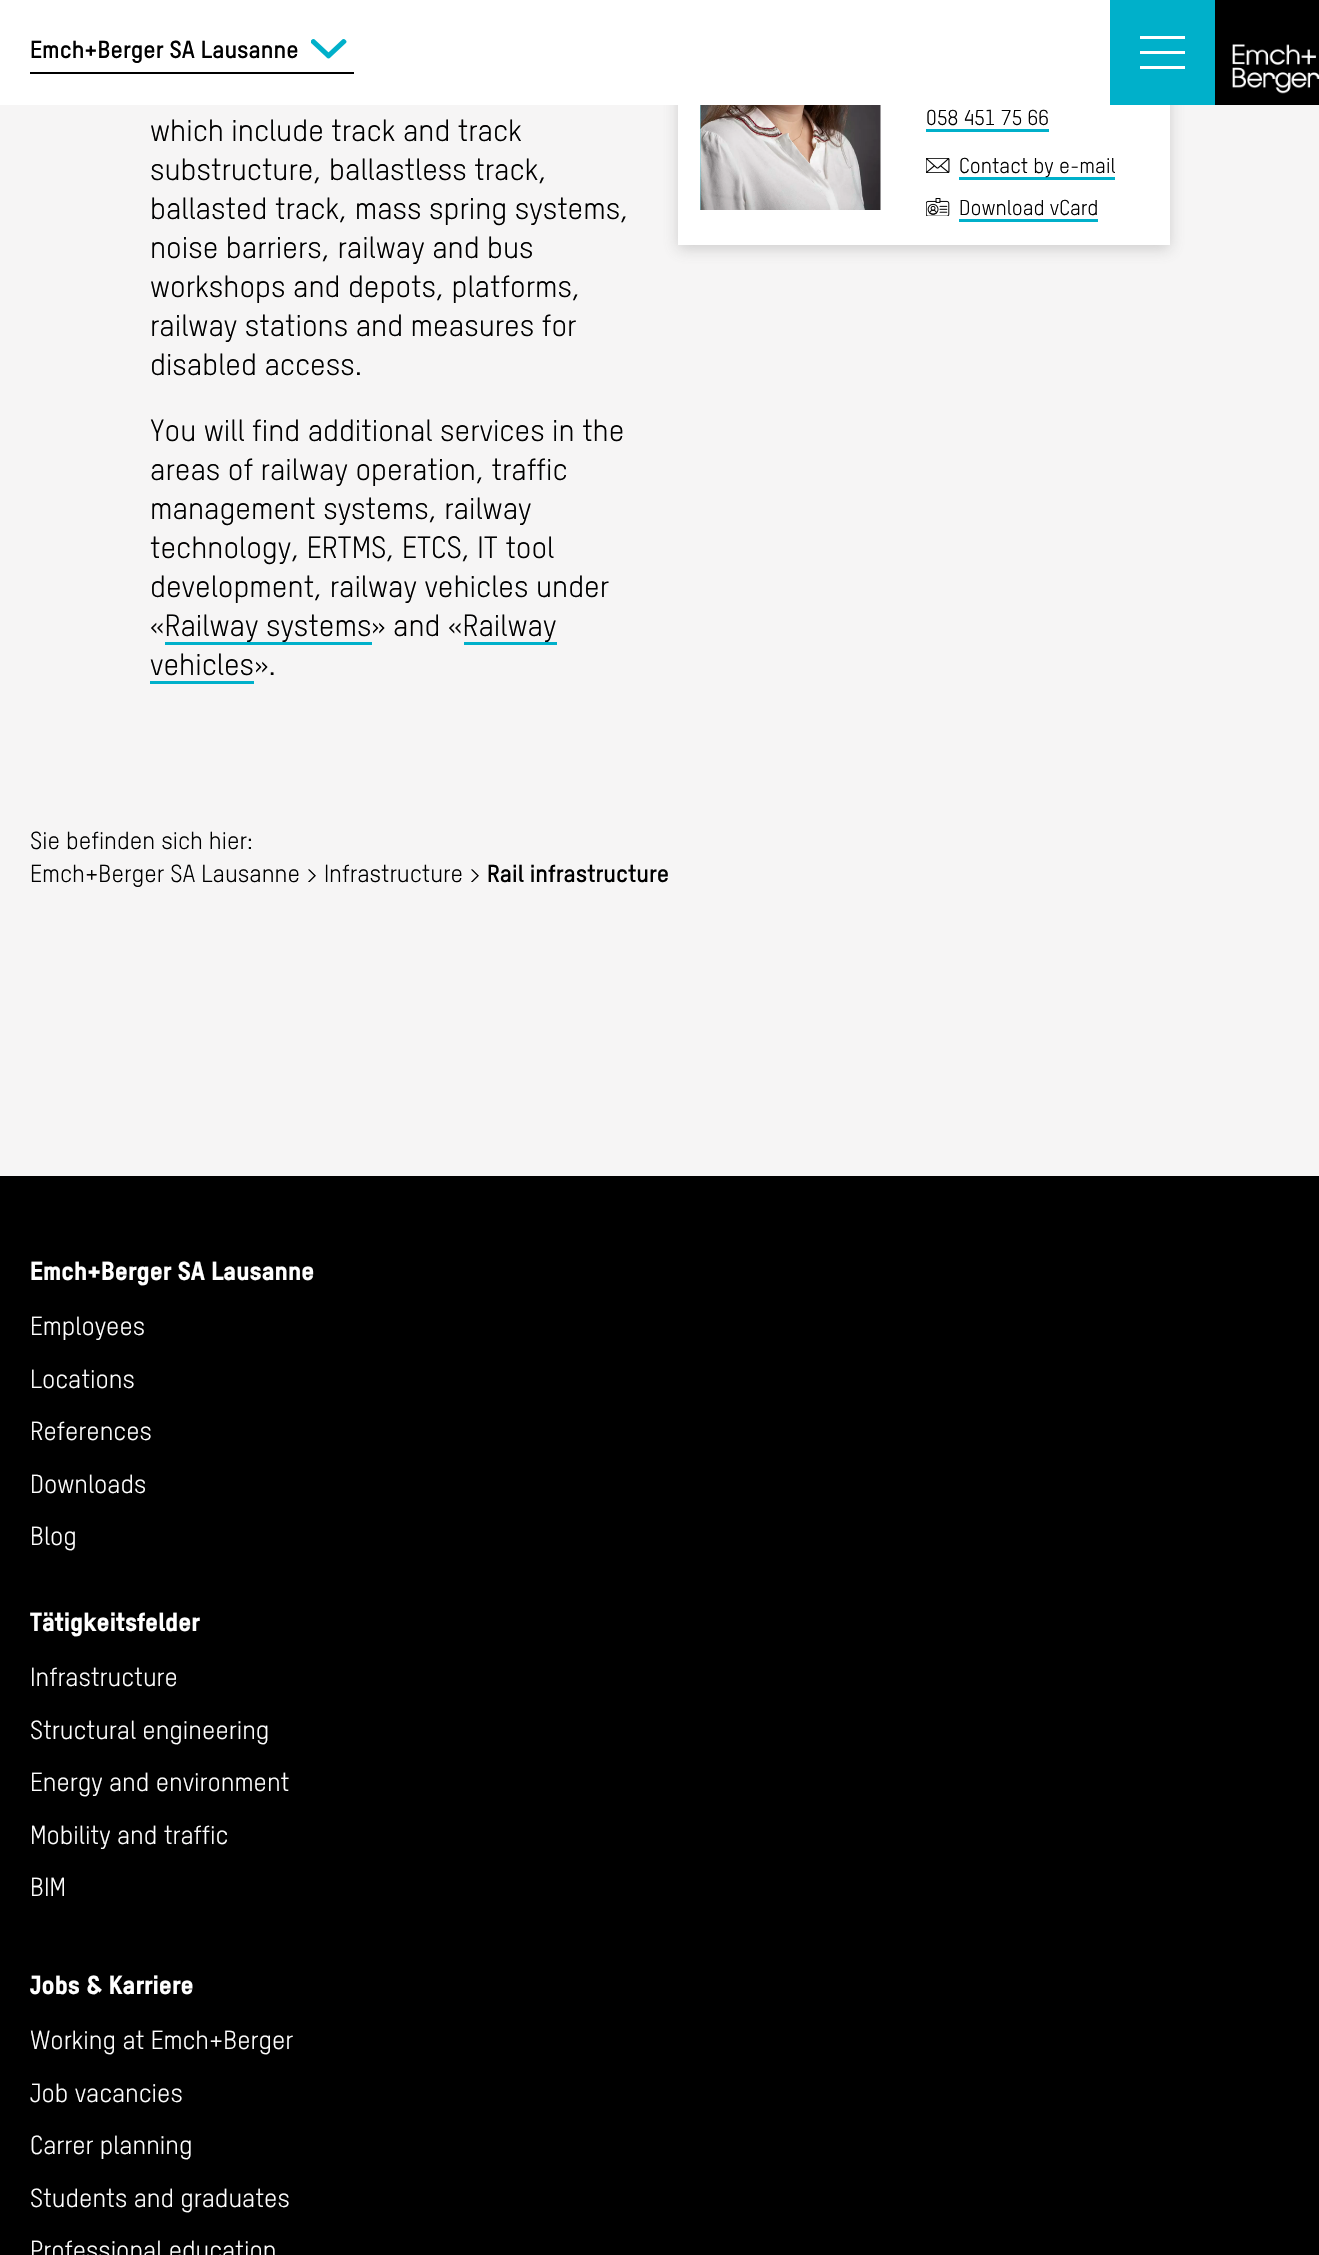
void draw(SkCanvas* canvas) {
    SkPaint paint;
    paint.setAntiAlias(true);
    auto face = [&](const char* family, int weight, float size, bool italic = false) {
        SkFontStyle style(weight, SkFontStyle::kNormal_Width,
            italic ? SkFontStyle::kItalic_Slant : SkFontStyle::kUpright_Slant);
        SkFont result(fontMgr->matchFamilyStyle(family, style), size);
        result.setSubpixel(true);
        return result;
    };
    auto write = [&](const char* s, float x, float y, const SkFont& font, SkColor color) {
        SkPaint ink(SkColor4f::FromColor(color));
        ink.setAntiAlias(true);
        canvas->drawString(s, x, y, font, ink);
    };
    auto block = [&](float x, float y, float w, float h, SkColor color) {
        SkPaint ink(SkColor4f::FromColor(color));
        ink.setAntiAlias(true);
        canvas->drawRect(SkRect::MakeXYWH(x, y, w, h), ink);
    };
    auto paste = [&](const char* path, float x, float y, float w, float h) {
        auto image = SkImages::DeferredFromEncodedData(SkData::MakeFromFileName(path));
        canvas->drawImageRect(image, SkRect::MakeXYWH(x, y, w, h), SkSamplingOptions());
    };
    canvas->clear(SkColorSetRGB(246, 245, 245));
    paint.setColor(SkColorSetARGB(74, 106, 106, 106));
    paint.setMaskFilter(SkMaskFilter::MakeBlur(kNormal_SkBlurStyle, 7));
    canvas->drawRect(SkRect::MakeXYWH(678, -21, 492, 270), paint);
    paint.setMaskFilter(nullptr);
    block(0, 0, 1110, 105, SK_ColorWHITE);
    auto kFont1 = face("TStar", 700, 24);
    write("Emch+Berger SA Lausanne", 30, 58, kFont1, SK_ColorBLACK);
    paste("pic1.png", 311, 39, 36, 20);
    block(30, 72, 324, 2, SK_ColorBLACK);
    block(1110, 0, 105, 105, SkColorSetRGB(0, 176, 202));
    block(1140, 36, 45, 3, SK_ColorWHITE);
    block(1140, 51, 45, 3, SK_ColorWHITE);
    block(1140, 66, 45, 3, SK_ColorWHITE);
    block(1215, 0, 104, 105, SK_ColorBLACK);
    paste("pic2.png", 1232, 44, 87, 50);
    auto kFont2 = face("TStar", 400, 30);
    write("which include track and track", 150, 141, kFont2, SK_ColorBLACK);
    write("substructure, ballastless track,", 150, 180, kFont2, SK_ColorBLACK);
    write("ballasted track, mass spring systems,", 150, 219, kFont2, SK_ColorBLACK);
    write("noise barriers, railway and bus", 150, 258, kFont2, SK_ColorBLACK);
    write("workshops and depots, platforms,", 150, 297, kFont2, SK_ColorBLACK);
    write("railway stations and measures for", 150, 336, kFont2, SK_ColorBLACK);
    write("disabled access.", 150, 375, kFont2, SK_ColorBLACK);
    write("You will find additional services in the", 150, 441, kFont2, SK_ColorBLACK);
    write("areas of railway operation, traffic", 150, 480, kFont2, SK_ColorBLACK);
    write("management systems, railway", 150, 519, kFont2, SK_ColorBLACK);
    write("technology, ERTMS, ETCS, IT tool", 150, 558, kFont2, SK_ColorBLACK);
    write("development, railway vehicles under", 150, 597, kFont2, SK_ColorBLACK);
    write("«Railway systems", 150, 636, kFont2, SK_ColorBLACK);
    write("» and «Railway", 371, 636, kFont2, SK_ColorBLACK);
    block(165, 642, 207, 3, SkColorSetRGB(0, 176, 202));
    write("vehicles", 150, 675, kFont2, SK_ColorBLACK);
    block(464, 642, 93, 3, SkColorSetRGB(0, 176, 202));
    block(150, 681, 104, 3, SkColorSetRGB(0, 176, 202));
    write("».", 254, 675, kFont2, SK_ColorBLACK);
    block(678, 105, 492, 140, SK_ColorWHITE);
    paste("pic3.png", 700, 105, 1, 105);
    paste("pic4.png", 700, 105, 181, 105);
    auto kFont3 = face("TStar", 400, 21);
    write("058 451 75 66", 926, 125, kFont3, SK_ColorBLACK);
    block(926, 129, 123, 3, SkColorSetRGB(0, 176, 202));
    paste("pic5.png", 926, 158, 24, 15);
    block(959, 177, 156, 3, SkColorSetRGB(0, 176, 202));
    write("Contact by e-mail", 959, 173, kFont3, SK_ColorBLACK);
    paste("pic6.png", 926, 198, 24, 18);
    write("Download vCard", 959, 215, kFont3, SK_ColorBLACK);
    block(959, 219, 139, 3, SkColorSetRGB(0, 176, 202));
    auto kFont4 = face("TStar", 400, 24);
    write("Sie befinden sich hier:", 30, 849, kFont4, SK_ColorBLACK);
    write("Emch+Berger SA Lausanne > Infrastructure >", 30, 882, kFont4, SK_ColorBLACK);
    write("Rail infrastructure", 487, 882, kFont1, SK_ColorBLACK);
    block(0, 1176, 1319, 1079, SK_ColorBLACK);
    auto kFont5 = face("TStar", 900, 25.5f);
    write("Emch+Berger SA Lausanne", 30, 1280, kFont5, SK_ColorWHITE);
    auto kFont6 = face("TStar", 400, 25.5f);
    write("Employees", 30, 1335, kFont6, SK_ColorWHITE);
    write("Locations", 30, 1388, kFont6, SK_ColorWHITE);
    write("References", 30, 1440, kFont6, SK_ColorWHITE);
    write("Downloads", 30, 1493, kFont6, SK_ColorWHITE);
    write("Blog", 30, 1545, kFont6, SK_ColorWHITE);
    write("Tätigkeitsfelder", 30, 1631, kFont5, SK_ColorWHITE);
    write("Infrastructure", 30, 1686, kFont6, SK_ColorWHITE);
    write("Structural engineering", 30, 1739, kFont6, SK_ColorWHITE);
    write("Energy and environment", 30, 1791, kFont6, SK_ColorWHITE);
    write("Mobility and traffic", 30, 1844, kFont6, SK_ColorWHITE);
    write("BIM", 30, 1896, kFont6, SK_ColorWHITE);
    write("Jobs & Karriere", 30, 1994, kFont5, SK_ColorWHITE);
    write("Working at Emch+Berger", 30, 2049, kFont6, SK_ColorWHITE);
    write("Job vacancies", 30, 2102, kFont6, SK_ColorWHITE);
    write("Carrer planning", 30, 2154, kFont6, SK_ColorWHITE);
    write("Students and graduates", 30, 2207, kFont6, SK_ColorWHITE);
    write("Professional education", 30, 2259, kFont6, SK_ColorWHITE);
}
